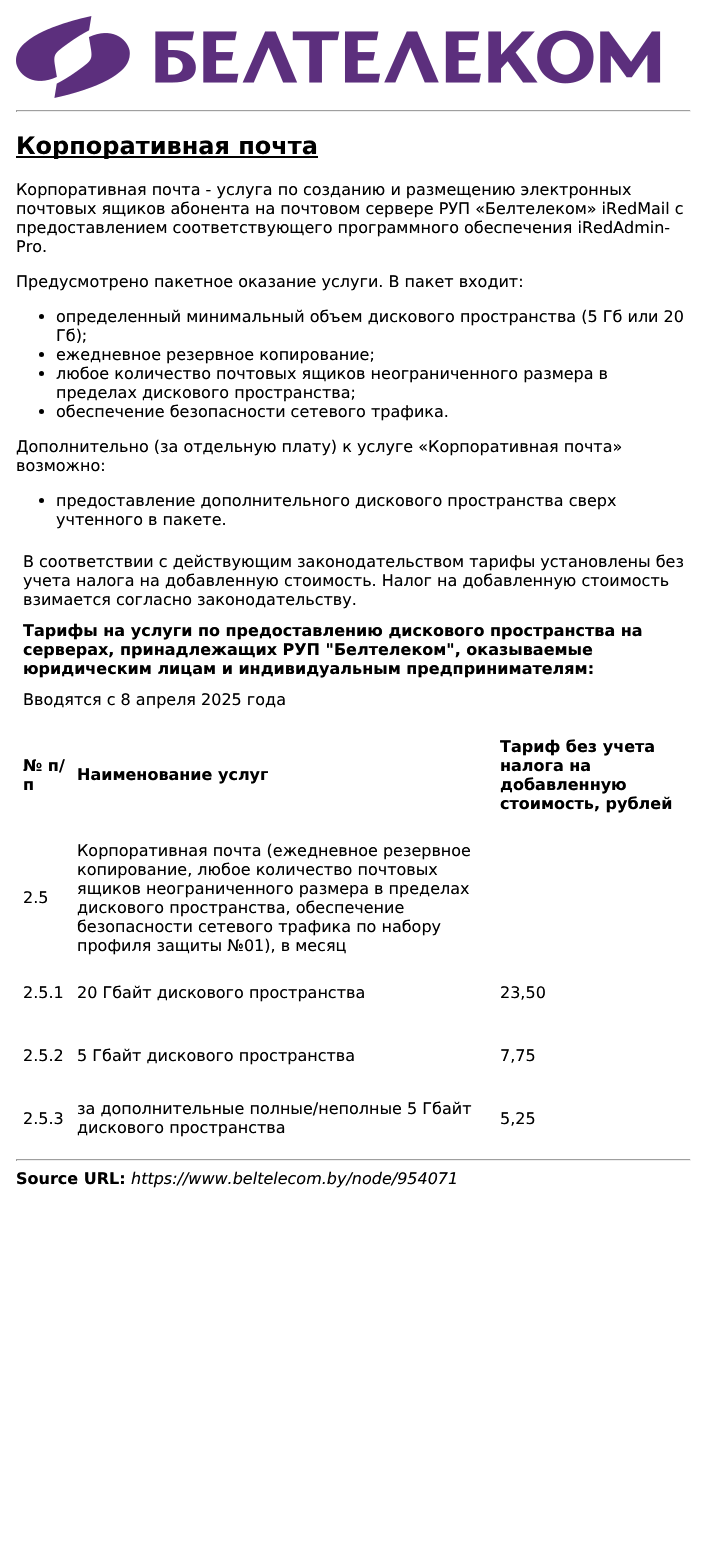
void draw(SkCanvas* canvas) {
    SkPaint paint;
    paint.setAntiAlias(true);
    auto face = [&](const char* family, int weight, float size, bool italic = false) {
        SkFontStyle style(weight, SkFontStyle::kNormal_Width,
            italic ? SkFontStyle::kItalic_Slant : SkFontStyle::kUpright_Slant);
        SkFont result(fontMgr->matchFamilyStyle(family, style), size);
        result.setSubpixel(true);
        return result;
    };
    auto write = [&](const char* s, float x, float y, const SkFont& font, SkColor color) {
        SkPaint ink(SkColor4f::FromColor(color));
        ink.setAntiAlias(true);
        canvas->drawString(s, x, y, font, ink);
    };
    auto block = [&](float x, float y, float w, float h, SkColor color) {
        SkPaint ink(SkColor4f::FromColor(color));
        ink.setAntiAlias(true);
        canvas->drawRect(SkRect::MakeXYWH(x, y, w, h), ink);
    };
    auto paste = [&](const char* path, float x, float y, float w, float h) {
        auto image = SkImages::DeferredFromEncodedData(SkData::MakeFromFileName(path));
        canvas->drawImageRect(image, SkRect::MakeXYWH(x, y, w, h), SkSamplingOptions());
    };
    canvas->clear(SK_ColorWHITE);
    paste("pic1.png", 16, 16, 645, 82);
    block(16, 110, 675, 1, SkColorSetRGB(159, 159, 159));
    block(690, 110, 1, 2, SkColorSetRGB(238, 238, 238));
    block(16, 111, 675, 1, SkColorSetRGB(238, 238, 238));
    block(16, 110, 1, 2, SkColorSetRGB(159, 159, 159));
    block(16, 156, 302, 2, SK_ColorBLACK);
    auto kFont1 = face("DejaVu Sans", 700, 24);
    write("Корпоративная почта", 16, 154, kFont1, SK_ColorBLACK);
    auto kFont2 = face("DejaVu Sans", 400, 16);
    write("Корпоративная почта - услуга по созданию и размещению электронных", 16, 195, kFont2, SK_ColorBLACK);
    write("почтовых ящиков абонента на почтовом сервере РУП «Белтелеком» iRedMail с", 16, 214, kFont2, SK_ColorBLACK);
    write("предоставлением соответствующего программного обеспечения iRedAdmin-", 16, 233, kFont2, SK_ColorBLACK);
    write("Pro.", 16, 252, kFont2, SK_ColorBLACK);
    write("Предусмотрено пакетное оказание услуги. В пакет входит:", 16, 287, kFont2, SK_ColorBLACK);
    paint.setColor(SK_ColorBLACK);
    canvas->drawCircle(41.5f, 316.5f, 2.5f, paint);
    write("определенный минимальный объем дискового пространства (5 Гб или 20", 56, 322, kFont2, SK_ColorBLACK);
    write("Гб);", 56, 341, kFont2, SK_ColorBLACK);
    canvas->drawCircle(41.5f, 354.5f, 2.5f, paint);
    write("ежедневное резервное копирование;", 56, 360, kFont2, SK_ColorBLACK);
    canvas->drawCircle(41.5f, 373.5f, 2.5f, paint);
    write("любое количество почтовых ящиков неограниченного размера в", 56, 379, kFont2, SK_ColorBLACK);
    write("пределах дискового пространства;", 56, 398, kFont2, SK_ColorBLACK);
    canvas->drawCircle(41.5f, 411.5f, 2.5f, paint);
    write("обеспечение безопасности сетевого трафика.", 56, 417, kFont2, SK_ColorBLACK);
    write("Дополнительно (за отдельную плату) к услуге «Корпоративная почта»", 16, 452, kFont2, SK_ColorBLACK);
    write("возможно:", 16, 471, kFont2, SK_ColorBLACK);
    canvas->drawCircle(41.5f, 500.5f, 2.5f, paint);
    write("предоставление дополнительного дискового пространства сверх", 56, 506, kFont2, SK_ColorBLACK);
    write("учтенного в пакете.", 56, 525, kFont2, SK_ColorBLACK);
    write("В соответствии с действующим законодательством тарифы установлены без", 23, 567, kFont2, SK_ColorBLACK);
    write("учета налога на добавленную стоимость. Налог на добавленную стоимость", 23, 586, kFont2, SK_ColorBLACK);
    write("взимается согласно законодательству.", 23, 605, kFont2, SK_ColorBLACK);
    auto kFont3 = face("DejaVu Sans", 700, 16);
    write("Тарифы на услуги по предоставлению дискового пространства на", 23, 636, kFont3, SK_ColorBLACK);
    write("серверах, принадлежащих РУП \"Белтелеком\", оказываемые", 23, 655, kFont3, SK_ColorBLACK);
    write("юридическим лицам и индивидуальным предпринимателям:", 23, 674, kFont3, SK_ColorBLACK);
    write("Вводятся с 8 апреля 2025 года", 23, 705, kFont2, SK_ColorBLACK);
    write("№ п/", 23, 771, kFont3, SK_ColorBLACK);
    write("п", 23, 790, kFont3, SK_ColorBLACK);
    write("Наименование услуг", 77, 780, kFont3, SK_ColorBLACK);
    write("Тариф без учета", 500, 752, kFont3, SK_ColorBLACK);
    write("налога на", 500, 771, kFont3, SK_ColorBLACK);
    write("добавленную", 500, 790, kFont3, SK_ColorBLACK);
    write("стоимость, рублей", 500, 809, kFont3, SK_ColorBLACK);
    write("2.5", 23, 903, kFont2, SK_ColorBLACK);
    write("Корпоративная почта (ежедневное резервное", 77, 856, kFont2, SK_ColorBLACK);
    write("копирование, любое количество почтовых", 77, 875, kFont2, SK_ColorBLACK);
    write("ящиков неограниченного размера в пределах", 77, 894, kFont2, SK_ColorBLACK);
    write("дискового пространства, обеспечение", 77, 913, kFont2, SK_ColorBLACK);
    write("безопасности сетевого трафика по набору", 77, 932, kFont2, SK_ColorBLACK);
    write("профиля защиты №01), в месяц", 77, 951, kFont2, SK_ColorBLACK);
    write("2.5.1", 23, 998, kFont2, SK_ColorBLACK);
    write("20 Гбайт дискового пространства", 77, 998, kFont2, SK_ColorBLACK);
    write("23,50", 500, 998, kFont2, SK_ColorBLACK);
    write("2.5.2", 23, 1061, kFont2, SK_ColorBLACK);
    write("5 Гбайт дискового пространства", 77, 1061, kFont2, SK_ColorBLACK);
    write("7,75", 500, 1061, kFont2, SK_ColorBLACK);
    write("2.5.3", 23, 1124, kFont2, SK_ColorBLACK);
    write("за дополнительные полные/неполные 5 Гбайт", 77, 1114, kFont2, SK_ColorBLACK);
    write("дискового пространства", 77, 1133, kFont2, SK_ColorBLACK);
    write("5,25", 500, 1124, kFont2, SK_ColorBLACK);
    block(16, 1159, 675, 1, SkColorSetRGB(159, 159, 159));
    block(690, 1159, 1, 2, SkColorSetRGB(238, 238, 238));
    block(16, 1160, 675, 1, SkColorSetRGB(238, 238, 238));
    block(16, 1159, 1, 2, SkColorSetRGB(159, 159, 159));
    write("Source URL:", 16, 1184, kFont3, SK_ColorBLACK);
    auto kFont4 = face("DejaVu Sans", 400, 16, true);
    write("https://www.beltelecom.by/node/954071", 131, 1184, kFont4, SK_ColorBLACK);
}
